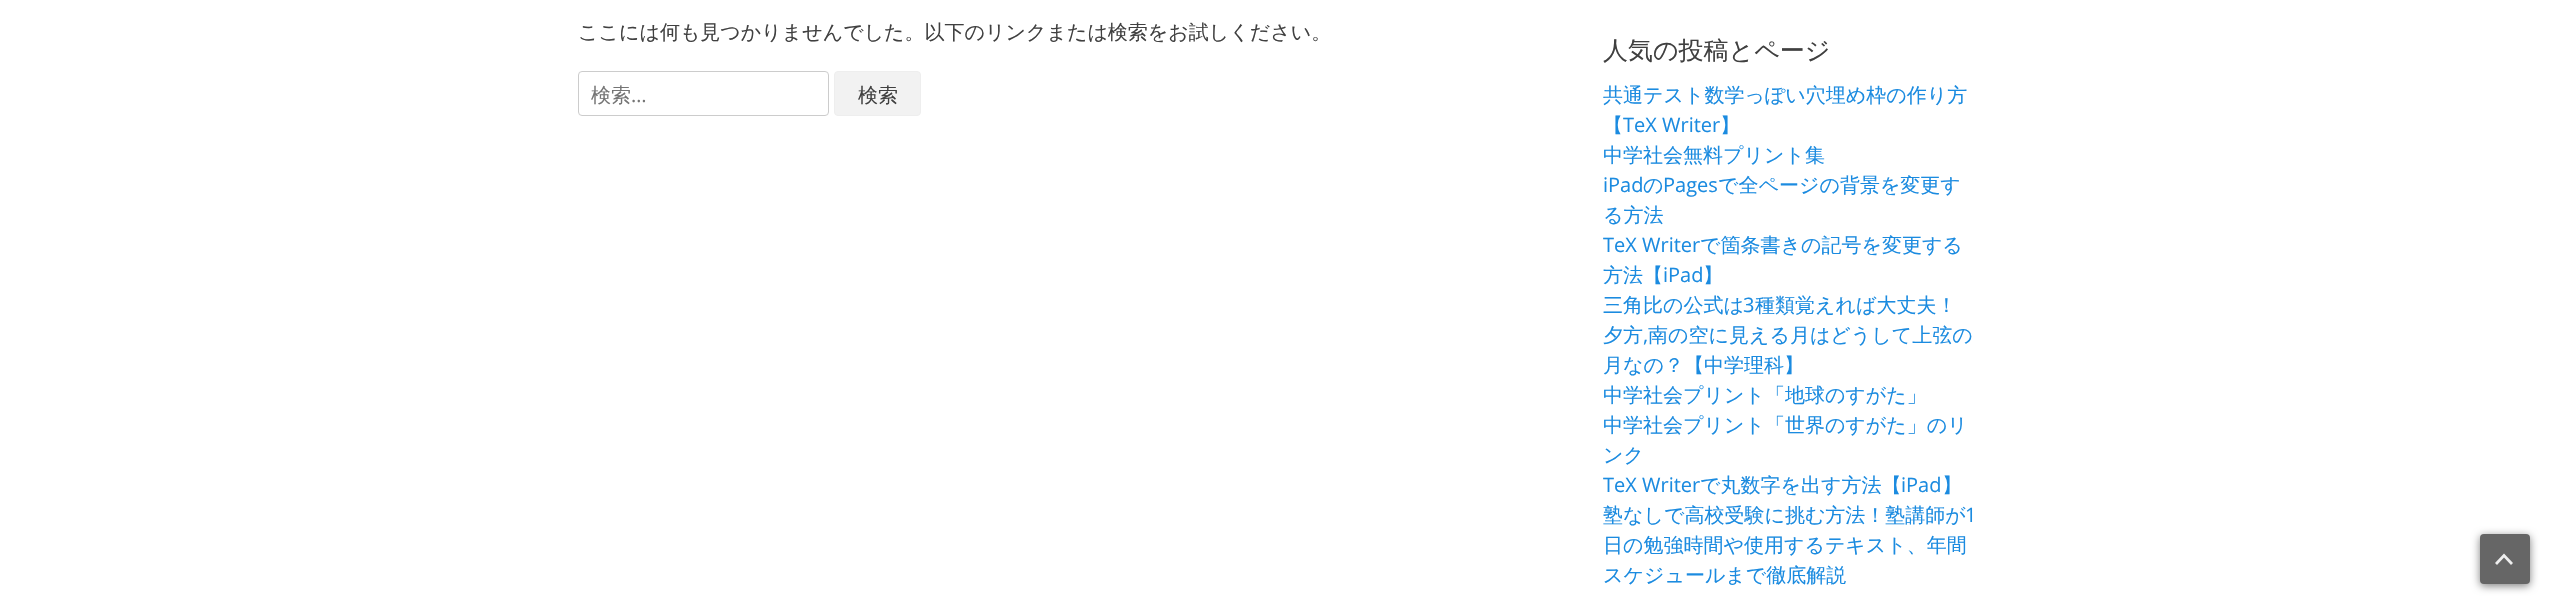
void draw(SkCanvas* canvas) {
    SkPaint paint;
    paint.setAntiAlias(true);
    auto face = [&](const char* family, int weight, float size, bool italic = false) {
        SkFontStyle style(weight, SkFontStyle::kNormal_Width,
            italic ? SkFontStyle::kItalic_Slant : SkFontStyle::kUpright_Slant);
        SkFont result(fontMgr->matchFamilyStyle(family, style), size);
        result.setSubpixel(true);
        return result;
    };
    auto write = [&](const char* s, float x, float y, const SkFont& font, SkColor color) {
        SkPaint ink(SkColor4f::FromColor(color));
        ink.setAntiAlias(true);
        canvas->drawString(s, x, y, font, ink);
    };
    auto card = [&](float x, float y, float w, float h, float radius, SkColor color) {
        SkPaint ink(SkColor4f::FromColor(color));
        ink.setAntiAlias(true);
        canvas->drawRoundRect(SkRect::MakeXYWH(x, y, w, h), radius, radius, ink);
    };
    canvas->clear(SK_ColorWHITE);
    auto kFont1 = face("WenQuanYi Zen Hei", 500, 20);
    write("ここには何も見つかりませんでした。以下のリンクまたは検索をお試しください。", 578, 39, kFont1, SkColorSetRGB(64, 64, 64));
    paint.setStyle(SkPaint::kStroke_Style);
    paint.setStrokeWidth(1);
    paint.setColor(SkColorSetRGB(204, 204, 204));
    canvas->drawRoundRect(SkRect::MakeXYWH(578.5f, 71.5f, 250, 44), 3.5f, 3.5f, paint);
    write("検索", 591, 102, kFont1, SkColorSetRGB(117, 117, 117));
    auto kFont2 = face("Open Sans", 400, 20);
    write("…", 631, 102, kFont2, SkColorSetRGB(117, 117, 117));
    paint.setStyle(SkPaint::kFill_Style);
    paint.setColor(SkColorSetRGB(242, 242, 242));
    canvas->drawRoundRect(SkRect::MakeXYWH(834.5f, 71.5f, 86, 44), 3.5f, 3.5f, paint);
    paint.setStyle(SkPaint::kStroke_Style);
    paint.setColor(SkColorSetRGB(238, 238, 238));
    canvas->drawRoundRect(SkRect::MakeXYWH(834.5f, 71.5f, 86, 44), 3.5f, 3.5f, paint);
    write("検索", 858, 102, kFont1, SkColorSetRGB(64, 64, 64));
    auto kFont3 = face("WenQuanYi Zen Hei", 500, 25);
    write("人気の投稿とページ", 1603, 59, kFont3, SkColorSetRGB(64, 64, 64));
    write("共通テスト数学っぽい穴埋め枠の作り方", 1603, 102, kFont1, SkColorSetRGB(27, 139, 224));
    write("【", 1603, 132, kFont1, SkColorSetRGB(27, 139, 224));
    write("TeX Writer", 1623, 132, kFont2, SkColorSetRGB(27, 139, 224));
    write("】", 1720, 132, kFont1, SkColorSetRGB(27, 139, 224));
    write("中学社会無料プリント集", 1603, 162, kFont1, SkColorSetRGB(27, 139, 224));
    write("iPad", 1603, 192, kFont2, SkColorSetRGB(27, 139, 224));
    write("の", 1643, 192, kFont1, SkColorSetRGB(27, 139, 224));
    write("Pages", 1663, 192, kFont2, SkColorSetRGB(27, 139, 224));
    write("で全ページの背景を変更す", 1718, 192, kFont1, SkColorSetRGB(27, 139, 224));
    write("る方法", 1603, 222, kFont1, SkColorSetRGB(27, 139, 224));
    write("TeX Writer", 1603, 252, kFont2, SkColorSetRGB(27, 139, 224));
    write("で箇条書きの記号を変更する", 1700, 252, kFont1, SkColorSetRGB(27, 139, 224));
    write("方法【", 1603, 282, kFont1, SkColorSetRGB(27, 139, 224));
    write("iPad", 1663, 282, kFont2, SkColorSetRGB(27, 139, 224));
    write("】", 1703, 282, kFont1, SkColorSetRGB(27, 139, 224));
    write("三角比の公式は", 1603, 312, kFont1, SkColorSetRGB(27, 139, 224));
    write("3", 1743, 312, kFont2, SkColorSetRGB(27, 139, 224));
    write("種類覚えれば大丈夫！", 1755, 312, kFont1, SkColorSetRGB(27, 139, 224));
    write("夕方", 1603, 342, kFont1, SkColorSetRGB(27, 139, 224));
    write(",", 1643, 342, kFont2, SkColorSetRGB(27, 139, 224));
    write("南の空に見える月はどうして上弦の", 1648, 342, kFont1, SkColorSetRGB(27, 139, 224));
    write("月なの？【中学理科】", 1603, 372, kFont1, SkColorSetRGB(27, 139, 224));
    write("中学社会プリント「地球のすがた」", 1603, 402, kFont1, SkColorSetRGB(27, 139, 224));
    write("中学社会プリント「世界のすがた」のリ", 1603, 432, kFont1, SkColorSetRGB(27, 139, 224));
    write("ンク", 1603, 462, kFont1, SkColorSetRGB(27, 139, 224));
    write("TeX Writer", 1603, 492, kFont2, SkColorSetRGB(27, 139, 224));
    write("で丸数字を出す方法【", 1700, 492, kFont1, SkColorSetRGB(27, 139, 224));
    write("iPad", 1901, 492, kFont2, SkColorSetRGB(27, 139, 224));
    write("】", 1942, 492, kFont1, SkColorSetRGB(27, 139, 224));
    write("塾なしで高校受験に挑む方法！塾講師が", 1603, 522, kFont1, SkColorSetRGB(27, 139, 224));
    write("1", 1965, 522, kFont2, SkColorSetRGB(27, 139, 224));
    write("日の勉強時間や使用するテキスト、年間", 1603, 552, kFont1, SkColorSetRGB(27, 139, 224));
    write("スケジュールまで徹底解説", 1603, 582, kFont1, SkColorSetRGB(27, 139, 224));
    paint.setStyle(SkPaint::kFill_Style);
    paint.setColor(SkColorSetARGB(128, 0, 0, 0));
    paint.setMaskFilter(SkMaskFilter::MakeBlur(kNormal_SkBlurStyle, 4));
    canvas->drawRoundRect(SkRect::MakeXYWH(2480, 536, 50, 50), 4, 4, paint);
    paint.setMaskFilter(nullptr);
    card(2480, 534, 50, 50, 4, SkColorSetRGB(102, 102, 102));
    paint.setColor(SkColorSetRGB(238, 238, 238));
    canvas->drawPath(SkPathBuilder().moveTo(2511, 565).lineTo(2504, 557.5f).lineTo(2497, 565).lineTo(2495, 563).lineTo(2504, 553.5f).lineTo(2513, 563).close().detach(), paint);
}
